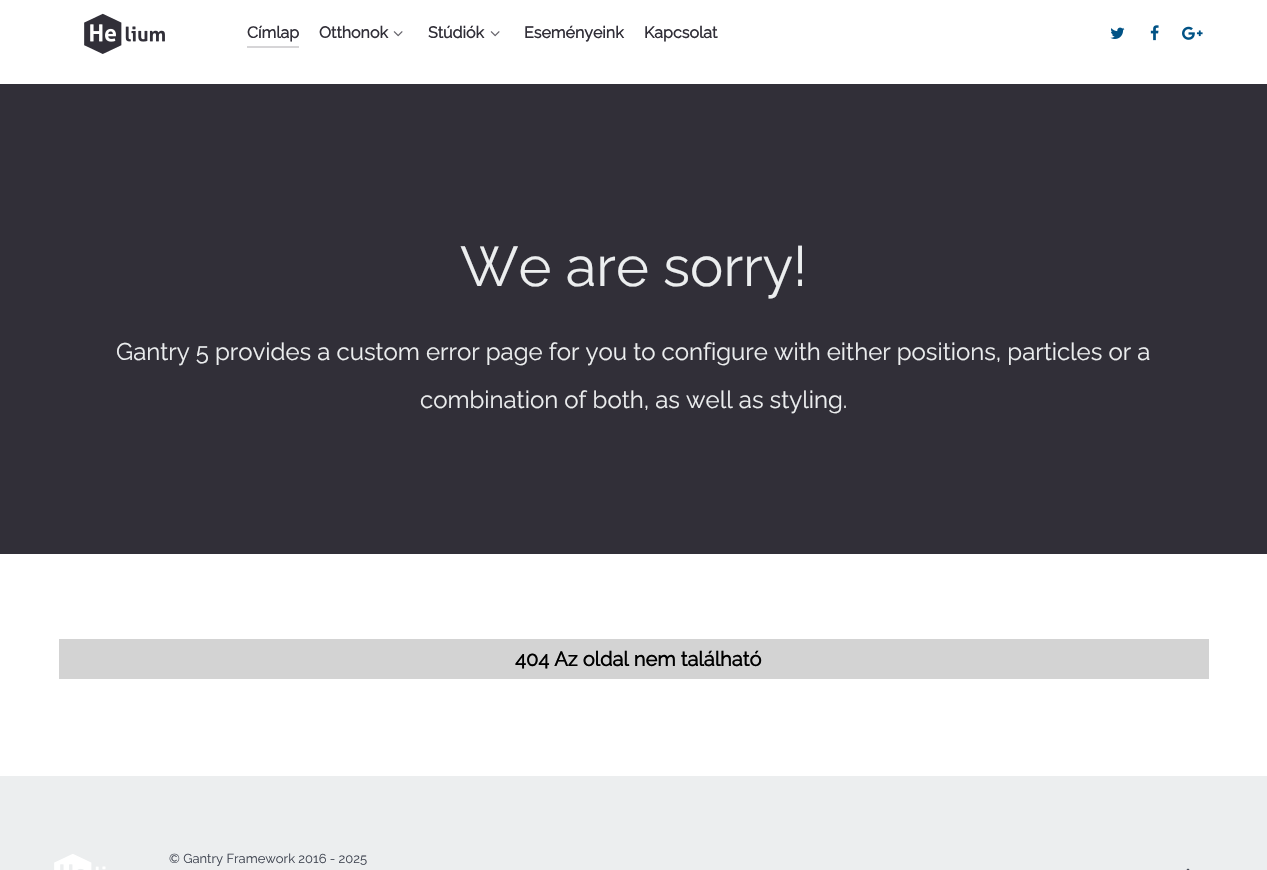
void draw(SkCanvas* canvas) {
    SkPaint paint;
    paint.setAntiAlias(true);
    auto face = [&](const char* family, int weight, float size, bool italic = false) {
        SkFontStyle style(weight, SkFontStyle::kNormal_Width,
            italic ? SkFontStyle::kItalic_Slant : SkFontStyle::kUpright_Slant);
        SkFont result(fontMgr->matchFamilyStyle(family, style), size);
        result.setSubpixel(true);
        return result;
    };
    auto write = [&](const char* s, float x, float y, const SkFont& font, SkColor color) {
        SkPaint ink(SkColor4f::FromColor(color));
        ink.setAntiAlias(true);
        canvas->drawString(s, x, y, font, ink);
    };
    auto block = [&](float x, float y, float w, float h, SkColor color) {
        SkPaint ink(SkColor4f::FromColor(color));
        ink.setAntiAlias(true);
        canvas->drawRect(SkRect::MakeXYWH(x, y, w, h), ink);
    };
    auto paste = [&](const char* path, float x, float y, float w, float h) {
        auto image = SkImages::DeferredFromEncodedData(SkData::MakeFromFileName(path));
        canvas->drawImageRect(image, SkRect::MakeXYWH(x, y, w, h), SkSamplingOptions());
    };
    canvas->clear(SK_ColorWHITE);
    paste("pic1.png", 84, 13, 81, 41);
    block(247, 46, 52, 2, SkColorSetRGB(214, 213, 215));
    auto kFont1 = face("Raleway", 700, 16);
    write("Címlap", 247, 38, kFont1, SkColorSetRGB(49, 47, 56));
    write("Otthonok", 319, 38, kFont1, SkColorSetRGB(49, 47, 56));
    paste("pic2.png", 393, 31, 10, 6);
    write("Stúdiók", 428, 38, kFont1, SkColorSetRGB(49, 47, 56));
    paste("pic2.png", 490, 31, 10, 6);
    write("Eseményeink", 524, 38, kFont1, SkColorSetRGB(49, 47, 56));
    write("Kapcsolat", 644, 38, kFont1, SkColorSetRGB(49, 47, 56));
    paste("pic3.png", 1110, 27, 15, 12);
    paste("pic4.png", 1150, 25, 9, 16);
    paste("pic5.png", 1182, 26, 21, 14);
    block(0, 84, 1267, 470, SkColorSetRGB(49, 47, 56));
    auto kFont2 = face("Raleway", 100, 56);
    write("We are sorry!", 460, 286, kFont2, SkColorSetRGB(236, 238, 239));
    auto kFont3 = face("Raleway", 100, 24);
    write("Gantry 5 provides a custom error page for you to configure with either positions, particles or a", 116, 360, kFont3, SkColorSetRGB(236, 238, 239));
    write("combination of both, as well as styling.", 420, 408, kFont3, SkColorSetRGB(236, 238, 239));
    block(59, 639, 1150, 40, SkColorSetRGB(211, 211, 211));
    auto kFont4 = face("Raleway", 700, 20);
    write("404 Az oldal nem található", 515, 666, kFont4, SK_ColorBLACK);
    block(0, 776, 1267, 94, SkColorSetRGB(236, 238, 239));
    paste("pic6.png", 54, 854, 52, 16);
    auto kFont5 = face("Raleway", 100, 13);
    write("© Gantry Framework 2016 - 2025", 169, 863, kFont5, SkColorSetRGB(66, 71, 83));
    paste("pic7.png", 1186, 868, 4, 2);
}
